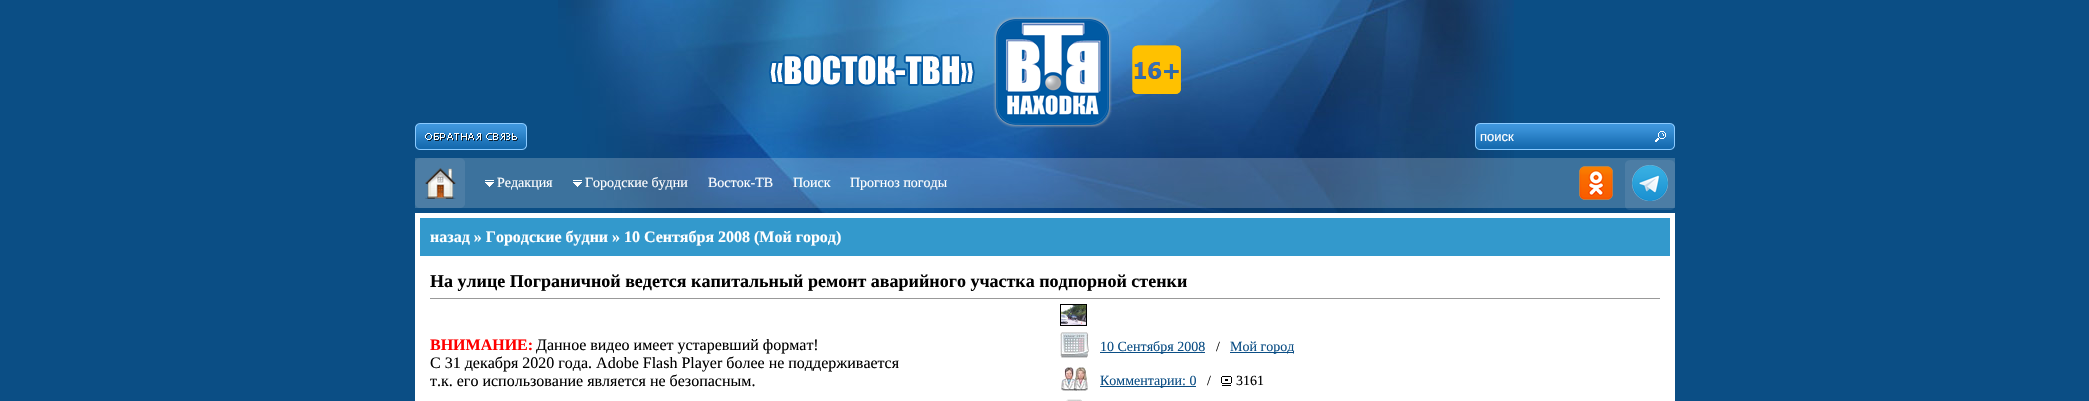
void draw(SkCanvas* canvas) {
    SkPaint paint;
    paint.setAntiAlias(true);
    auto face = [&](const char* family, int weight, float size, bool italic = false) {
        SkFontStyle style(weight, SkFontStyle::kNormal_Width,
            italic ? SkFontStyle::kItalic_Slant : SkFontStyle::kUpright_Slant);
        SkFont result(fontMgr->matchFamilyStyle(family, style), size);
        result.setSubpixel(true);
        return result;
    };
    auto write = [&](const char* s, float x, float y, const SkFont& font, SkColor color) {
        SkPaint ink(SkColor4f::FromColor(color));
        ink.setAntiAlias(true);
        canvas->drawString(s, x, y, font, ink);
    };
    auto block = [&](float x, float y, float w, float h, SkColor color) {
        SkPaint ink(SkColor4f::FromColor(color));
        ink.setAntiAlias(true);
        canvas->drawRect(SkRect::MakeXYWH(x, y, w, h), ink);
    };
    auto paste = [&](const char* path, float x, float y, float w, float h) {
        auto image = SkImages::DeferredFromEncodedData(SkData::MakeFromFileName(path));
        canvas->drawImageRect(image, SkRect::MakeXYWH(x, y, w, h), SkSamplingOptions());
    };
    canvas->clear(SkColorSetRGB(11, 78, 133));
    paste("pic1.png", 558, 0, 956, 213);
    paste("pic2.png", 768, 16, 413, 112);
    paste("pic3.png", 415, 123, 112, 27);
    paste("pic4.png", 1475, 123, 200, 27);
    auto kFont1 = face("Liberation Sans", 400, 13);
    write("поиск", 1480, 141, kFont1, SK_ColorWHITE);
    block(415, 158, 1260, 50, SkColorSetARGB(51, 255, 255, 255));
    paste("pic5.png", 415, 158, 50, 50);
    paste("pic6.png", 425, 168, 31, 31);
    paste("pic7.png", 485, 180, 9, 7);
    auto kFont2 = face("Liberation Serif", 400, 14);
    write("Редакция", 497, 187, kFont2, SK_ColorWHITE);
    paste("pic7.png", 573, 180, 9, 7);
    write("Городские будни", 585, 187, kFont2, SK_ColorWHITE);
    write("Восток-ТВ", 708, 187, kFont2, SK_ColorWHITE);
    write("Поиск", 793, 187, kFont2, SK_ColorWHITE);
    write("Прогноз погоды", 850, 187, kFont2, SK_ColorWHITE);
    paste("pic8.png", 1625, 160, 50, 50);
    paste("pic9.png", 1579, 166, 34, 34);
    paste("pic10.png", 1632, 165, 36, 36);
    block(415, 213, 1260, 188, SK_ColorWHITE);
    block(420, 218, 1250, 38, SkColorSetRGB(51, 153, 204));
    auto kFont3 = face("Liberation Serif", 700, 16);
    write("назад » Городские будни » 10 Сентября 2008 (Мой город)", 430, 242, kFont3, SK_ColorWHITE);
    auto kFont4 = face("Liberation Serif", 700, 18);
    write("На улице Пограничной ведется капитальный ремонт аварийного участка подпорной стенки", 430, 287, kFont4, SK_ColorBLACK);
    block(430, 298, 1230, 1, SkColorSetRGB(153, 153, 153));
    write("ВНИМАНИЕ:", 430, 350, kFont3, SkColorSetRGB(255, 0, 0));
    auto kFont5 = face("Liberation Serif", 400, 16);
    write("Данное видео имеет устаревший формат!", 536, 350, kFont5, SK_ColorBLACK);
    write("С 31 декабря 2020 года. Adobe Flash Player более не поддерживается", 430, 368, kFont5, SK_ColorBLACK);
    write("т.к. его использование является не безопасным.", 430, 386, kFont5, SK_ColorBLACK);
    paint.setStyle(SkPaint::kStroke_Style);
    paint.setStrokeWidth(1);
    paint.setColor(SK_ColorBLACK);
    canvas->drawRect(SkRect::MakeXYWH(1060.5f, 304.5f, 26, 21), paint);
    paste("pic11.png", 1061, 305, 25, 20);
    paste("pic12.png", 1060, 332, 29, 26);
    block(1100, 352, 105, 1, SkColorSetRGB(11, 78, 133));
    write("10 Сентября 2008", 1100, 351, kFont2, SkColorSetRGB(11, 78, 133));
    write("/", 1216, 351, kFont2, SK_ColorBLACK);
    block(1230, 352, 64, 1, SkColorSetRGB(11, 78, 133));
    write("Мой город", 1230, 351, kFont2, SkColorSetRGB(11, 78, 133));
    paste("pic13.png", 1061, 367, 27, 24);
    block(1100, 386, 96, 1, SkColorSetRGB(11, 78, 133));
    write("Комментарии: 0", 1100, 385, kFont2, SkColorSetRGB(11, 78, 133));
    write("/", 1207, 385, kFont2, SK_ColorBLACK);
    paste("pic14.png", 1221, 376, 11, 10);
    write("3161", 1236, 385, kFont2, SK_ColorBLACK);
    paste("pic15.png", 1066, 399, 16, 2);
}
